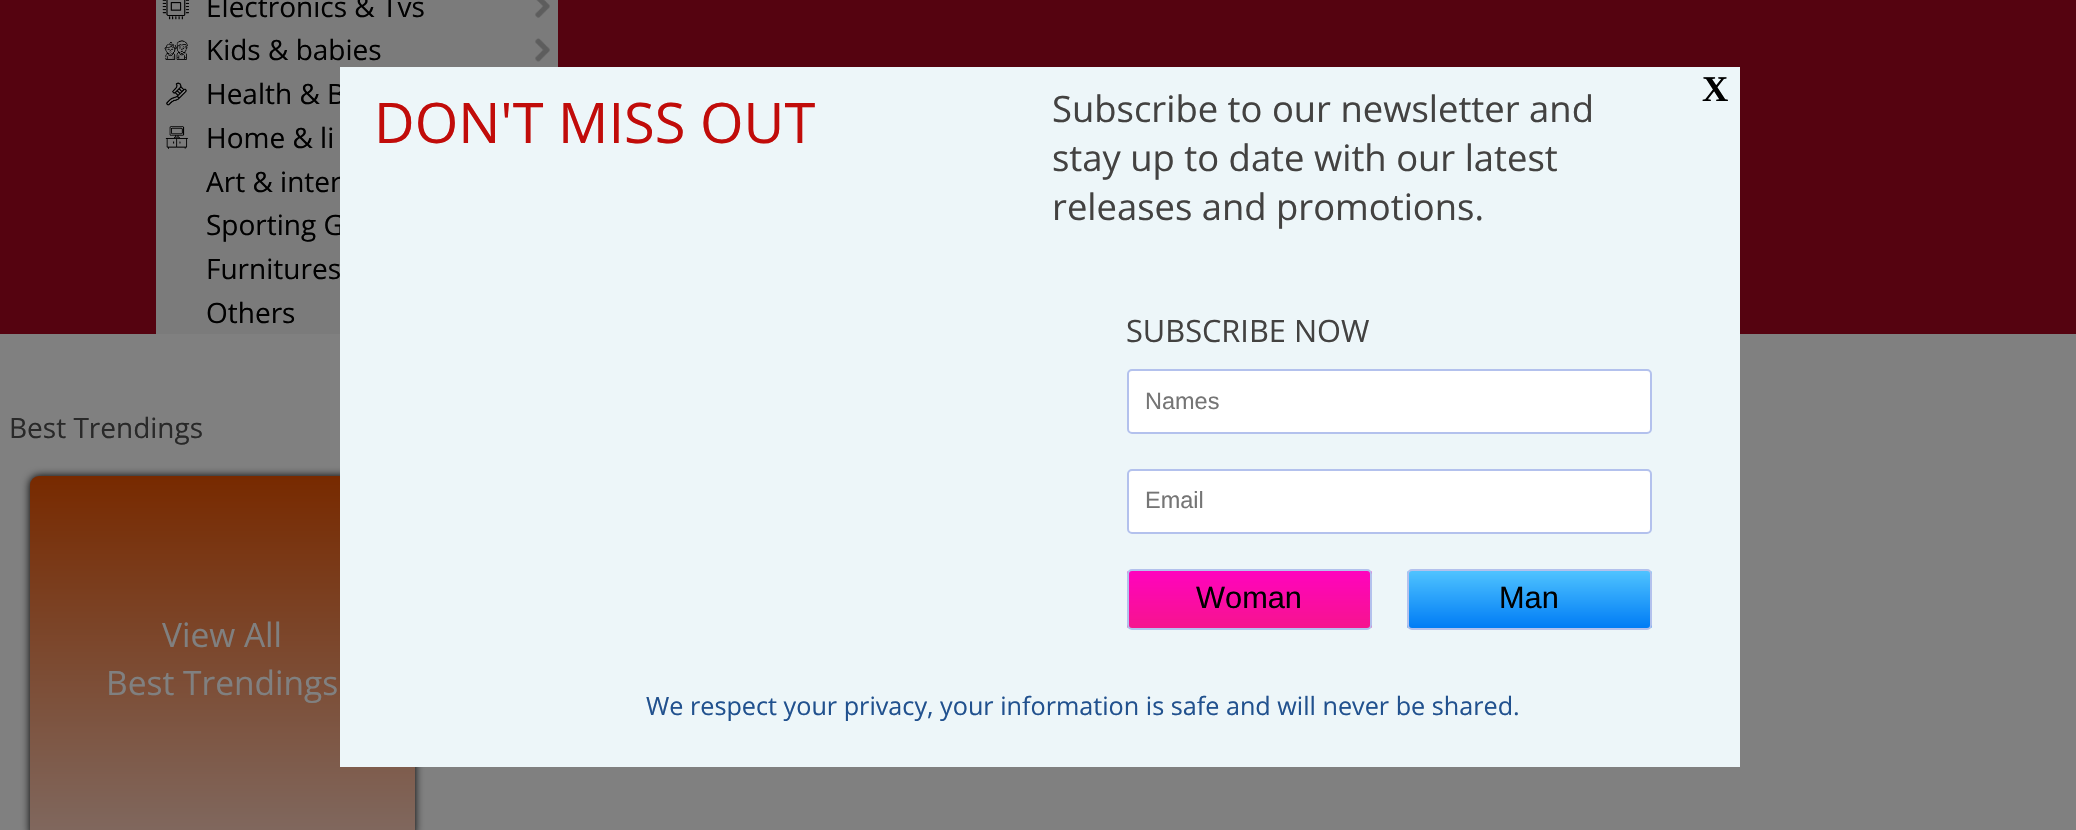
void draw(SkCanvas* canvas) {
    SkPaint paint;
    paint.setAntiAlias(true);
    auto face = [&](const char* family, int weight, float size, bool italic = false) {
        SkFontStyle style(weight, SkFontStyle::kNormal_Width,
            italic ? SkFontStyle::kItalic_Slant : SkFontStyle::kUpright_Slant);
        SkFont result(fontMgr->matchFamilyStyle(family, style), size);
        result.setSubpixel(true);
        return result;
    };
    auto write = [&](const char* s, float x, float y, const SkFont& font, SkColor color) {
        SkPaint ink(SkColor4f::FromColor(color));
        ink.setAntiAlias(true);
        canvas->drawString(s, x, y, font, ink);
    };
    auto block = [&](float x, float y, float w, float h, SkColor color) {
        SkPaint ink(SkColor4f::FromColor(color));
        ink.setAntiAlias(true);
        canvas->drawRect(SkRect::MakeXYWH(x, y, w, h), ink);
    };
    auto paste = [&](const char* path, float x, float y, float w, float h) {
        auto image = SkImages::DeferredFromEncodedData(SkData::MakeFromFileName(path));
        canvas->drawImageRect(image, SkRect::MakeXYWH(x, y, w, h), SkSamplingOptions());
    };
    canvas->clear(SkColorSetRGB(128, 128, 128));
    block(0, 0, 2076, 334, SkColorSetRGB(85, 3, 16));
    block(156, 0, 402, 72, SkColorSetRGB(123, 123, 123));
    paste("pic1.png", 162, 0, 27, 20);
    auto kFont1 = face("Open Sans", 400, 28);
    write("Electronics & Tvs", 206, 17, kFont1, SK_ColorBLACK);
    paste("pic2.png", 535, 0, 15, 18);
    paste("pic3.png", 164, 40, 24, 20);
    write("Kids & babies", 206, 60, kFont1, SK_ColorBLACK);
    paste("pic4.png", 535, 38, 15, 24);
    block(156, 72, 184, 262, SkColorSetRGB(123, 123, 123));
    paste("pic5.png", 166, 82, 21, 24);
    write("Health & B", 206, 104, kFont1, SK_ColorBLACK);
    paste("pic6.png", 165, 126, 23, 23);
    write("Home & li", 206, 148, kFont1, SK_ColorBLACK);
    write("Art & inter", 206, 192, kFont1, SK_ColorBLACK);
    write("Sporting G", 206, 235, kFont1, SK_ColorBLACK);
    write("Furnitures", 206, 279, kFont1, SK_ColorBLACK);
    write("Others", 206, 323, kFont1, SK_ColorBLACK);
    paint.setColor(SK_ColorBLACK);
    paint.setMaskFilter(SkMaskFilter::MakeBlur(kNormal_SkBlurStyle, 4.5f));
    canvas->drawRoundRect(SkRect::MakeXYWH(30, 476, 385, 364), 9, 9, paint);
    paint.setMaskFilter(nullptr);
    {
        const SkColor colors[] = {SkColorSetRGB(120, 42, 0), SkColorSetRGB(128, 105, 96)};
        const float stops[] = {0, 1};
        const SkPoint ends[] = {{222, 476}, {222, 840}};
        paint.setShader(SkGradientShader::MakeLinear(ends, colors, stops, 2, SkTileMode::kClamp));
        paint.setAlpha(255);
    }
    canvas->drawRoundRect(SkRect::MakeXYWH(30, 476, 385, 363), 9, 9, paint);
    block(340, 67, 1400, 700, SkColorSetRGB(237, 246, 249));
    auto kFont2 = face("Liberation Serif", 700, 36.4f);
    write("X", 1702, 101, kFont2, SK_ColorBLACK);
    auto kFont3 = face("Open Sans", 400, 56);
    write("DON'T MISS OUT", 374, 143, kFont3, SkColorSetRGB(193, 12, 10));
    auto kFont4 = face("Open Sans", 400, 36.4f);
    write("Subscribe to our newsletter and", 1052, 122, kFont4, SkColorSetRGB(67, 66, 65));
    write("stay up to date with our latest", 1052, 171, kFont4, SkColorSetRGB(67, 66, 65));
    write("releases and promotions.", 1052, 220, kFont4, SkColorSetRGB(67, 66, 65));
    auto kFont5 = face("Open Sans", 400, 30.75f);
    write("SUBSCRIBE NOW", 1126, 342, kFont5, SkColorSetRGB(67, 66, 65));
    paint.setShader(nullptr);
    paint.setColor(SK_ColorWHITE);
    canvas->drawRoundRect(SkRect::MakeXYWH(1128, 370, 523, 63), 4, 4, paint);
    paint.setStyle(SkPaint::kStroke_Style);
    paint.setStrokeWidth(2);
    paint.setColor(SkColorSetRGB(179, 193, 237));
    canvas->drawRoundRect(SkRect::MakeXYWH(1128, 370, 523, 63), 4, 4, paint);
    auto kFont6 = face("Liberation Sans", 400, 23.5f);
    write("Names", 1145, 409, kFont6, SkColorSetRGB(117, 117, 117));
    paint.setStyle(SkPaint::kFill_Style);
    paint.setColor(SK_ColorWHITE);
    canvas->drawRoundRect(SkRect::MakeXYWH(1128, 470, 523, 63), 4, 4, paint);
    paint.setStyle(SkPaint::kStroke_Style);
    paint.setColor(SkColorSetRGB(179, 193, 237));
    canvas->drawRoundRect(SkRect::MakeXYWH(1128, 470, 523, 63), 4, 4, paint);
    write("Email", 1145, 508, kFont6, SkColorSetRGB(117, 117, 117));
    canvas->save();
    canvas->clipPath(SkPathBuilder().moveTo(1132, 569).lineTo(1367, 569).cubicTo(1370, 569, 1372, 571, 1372, 574).lineTo(1372, 625).cubicTo(1372, 628, 1370, 630, 1367, 630).lineTo(1132, 630).cubicTo(1129, 630, 1127, 628, 1127, 625).lineTo(1127, 574).cubicTo(1127, 571, 1129, 569, 1132, 569).close().detach(), true);
    paint.setStyle(SkPaint::kFill_Style);
    {
        const SkColor colors[] = {SkColorSetRGB(255, 3, 190), SkColorSetRGB(246, 20, 142)};
        const float stops[] = {0, 1};
        const SkPoint ends[] = {{1250, 571}, {1250, 628}};
        paint.setShader(SkGradientShader::MakeLinear(ends, colors, stops, 2, SkTileMode::kClamp));
        paint.setAlpha(255);
    }
    canvas->drawRect(SkRect::MakeXYWH(1127, 571, 245, 57), paint);
    canvas->restore();
    paint.setStyle(SkPaint::kStroke_Style);
    paint.setShader(nullptr);
    paint.setColor(SkColorSetRGB(179, 193, 237));
    canvas->drawRoundRect(SkRect::MakeXYWH(1128, 570, 243, 59), 4, 4, paint);
    auto kFont7 = face("Liberation Sans", 400, 30.75f);
    write("Woman", 1196, 608, kFont7, SK_ColorBLACK);
    canvas->save();
    canvas->clipPath(SkPathBuilder().moveTo(1412, 569).lineTo(1647, 569).cubicTo(1650, 569, 1652, 571, 1652, 574).lineTo(1652, 625).cubicTo(1652, 628, 1650, 630, 1647, 630).lineTo(1412, 630).cubicTo(1409, 630, 1407, 628, 1407, 625).lineTo(1407, 574).cubicTo(1407, 571, 1409, 569, 1412, 569).close().detach(), true);
    paint.setStyle(SkPaint::kFill_Style);
    {
        const SkColor colors[] = {SkColorSetRGB(79, 195, 255), SkColorSetRGB(0, 124, 245)};
        const float stops[] = {0, 1};
        const SkPoint ends[] = {{1530, 571}, {1530, 628}};
        paint.setShader(SkGradientShader::MakeLinear(ends, colors, stops, 2, SkTileMode::kClamp));
        paint.setAlpha(255);
    }
    canvas->drawRect(SkRect::MakeXYWH(1407, 571, 245, 57), paint);
    canvas->restore();
    paint.setStyle(SkPaint::kStroke_Style);
    paint.setShader(nullptr);
    paint.setColor(SkColorSetRGB(179, 193, 237));
    canvas->drawRoundRect(SkRect::MakeXYWH(1408, 570, 243, 59), 4, 4, paint);
    write("Man", 1499, 608, kFont7, SK_ColorBLACK);
    auto kFont8 = face("Open Sans", 400, 25.2f);
    write("We respect your privacy, your information is safe and will never be shared.", 646, 715, kFont8, SkColorSetRGB(33, 81, 142));
    write("Best Trendings", 9, 438, kFont1, SkColorSetRGB(41, 41, 41));
    auto kFont9 = face("Open Sans", 400, 33.5f);
    write("View All", 162, 647, kFont9, SkColorSetRGB(128, 128, 128));
    write("Best Trendings", 106, 695, kFont9, SkColorSetRGB(128, 128, 128));
}
